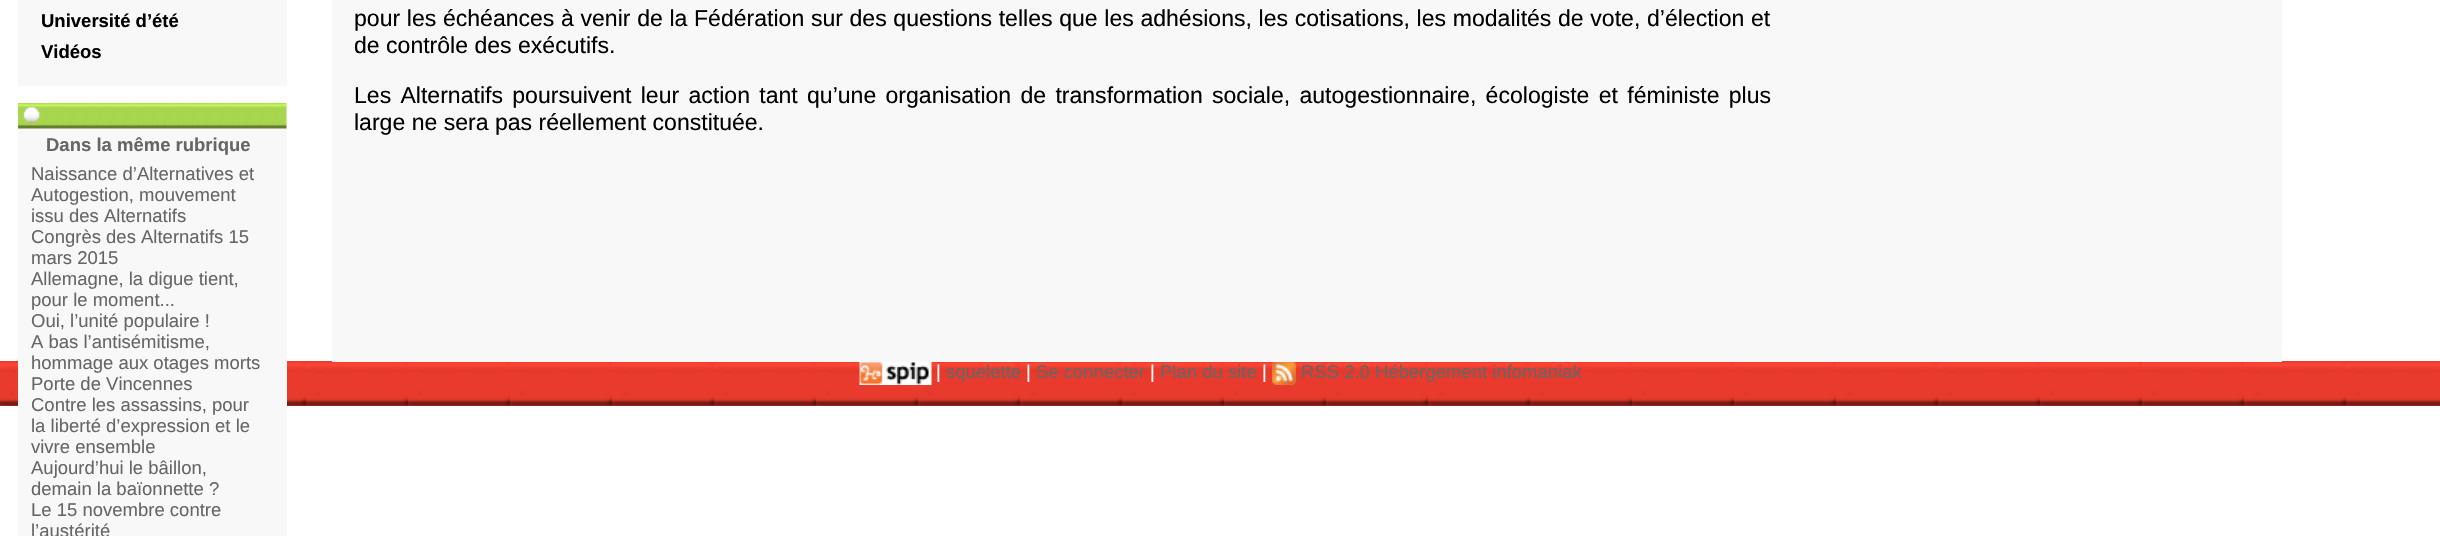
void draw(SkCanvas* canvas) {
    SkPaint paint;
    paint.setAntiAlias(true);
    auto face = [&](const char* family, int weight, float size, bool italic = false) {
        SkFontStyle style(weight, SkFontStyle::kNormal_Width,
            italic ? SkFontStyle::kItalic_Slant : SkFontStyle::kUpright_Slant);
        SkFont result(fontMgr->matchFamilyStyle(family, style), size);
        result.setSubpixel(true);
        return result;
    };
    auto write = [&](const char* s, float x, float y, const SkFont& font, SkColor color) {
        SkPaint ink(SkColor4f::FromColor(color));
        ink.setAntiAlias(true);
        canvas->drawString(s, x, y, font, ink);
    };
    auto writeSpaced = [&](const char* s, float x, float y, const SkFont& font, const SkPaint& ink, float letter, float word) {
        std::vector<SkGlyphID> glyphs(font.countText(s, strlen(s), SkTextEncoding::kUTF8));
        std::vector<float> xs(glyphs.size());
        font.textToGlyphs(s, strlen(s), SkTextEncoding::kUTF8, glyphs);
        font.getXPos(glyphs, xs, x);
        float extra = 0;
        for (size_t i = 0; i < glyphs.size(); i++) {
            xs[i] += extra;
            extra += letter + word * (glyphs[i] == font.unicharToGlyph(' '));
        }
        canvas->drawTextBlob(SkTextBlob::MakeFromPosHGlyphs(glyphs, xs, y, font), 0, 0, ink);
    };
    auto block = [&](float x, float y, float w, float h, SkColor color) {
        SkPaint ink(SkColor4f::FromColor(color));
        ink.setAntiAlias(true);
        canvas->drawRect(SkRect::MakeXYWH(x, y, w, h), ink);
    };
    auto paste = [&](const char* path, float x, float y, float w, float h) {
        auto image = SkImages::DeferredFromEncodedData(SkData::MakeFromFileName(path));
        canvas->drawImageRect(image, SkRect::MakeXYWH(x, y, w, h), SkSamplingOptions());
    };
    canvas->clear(SK_ColorWHITE);
    block(18, 0, 269, 86, SkColorSetRGB(248, 248, 248));
    auto kFont1 = face("Liberation Sans", 700, 18.5f);
    write("Université d’été", 41, 27, kFont1, SK_ColorBLACK);
    write("Vidéos", 41, 58, kFont1, SK_ColorBLACK);
    paste("pic2.png", 0, 361, 2440, 45);
    block(18, 104, 269, 432, SkColorSetRGB(248, 248, 248));
    paste("pic1.png", 18, 103, 269, 26);
    write("Dans la même rubrique", 46, 151, kFont1, SkColorSetRGB(102, 102, 102));
    auto kFont2 = face("Liberation Sans", 400, 18.5f);
    write("Naissance d’Alternatives et", 31, 180, kFont2, SkColorSetRGB(102, 102, 102));
    write("Autogestion, mouvement", 31, 201, kFont2, SkColorSetRGB(102, 102, 102));
    write("issu des Alternatifs", 31, 222, kFont2, SkColorSetRGB(102, 102, 102));
    write("Congrès des Alternatifs 15", 31, 243, kFont2, SkColorSetRGB(102, 102, 102));
    write("mars 2015", 31, 264, kFont2, SkColorSetRGB(102, 102, 102));
    write("Allemagne, la digue tient,", 31, 285, kFont2, SkColorSetRGB(102, 102, 102));
    write("pour le moment...", 31, 306, kFont2, SkColorSetRGB(102, 102, 102));
    write("Oui, l’unité populaire !", 31, 327, kFont2, SkColorSetRGB(102, 102, 102));
    write("A bas l’antisémitisme,", 31, 348, kFont2, SkColorSetRGB(102, 102, 102));
    write("hommage aux otages morts", 31, 369, kFont2, SkColorSetRGB(102, 102, 102));
    write("Porte de Vincennes", 31, 390, kFont2, SkColorSetRGB(102, 102, 102));
    write("Contre les assassins, pour", 31, 411, kFont2, SkColorSetRGB(102, 102, 102));
    write("la liberté d’expression et le", 31, 432, kFont2, SkColorSetRGB(102, 102, 102));
    write("vivre ensemble", 31, 453, kFont2, SkColorSetRGB(102, 102, 102));
    write("Aujourd’hui le bâillon,", 31, 474, kFont2, SkColorSetRGB(102, 102, 102));
    write("demain la baïonnette ?", 31, 495, kFont2, SkColorSetRGB(102, 102, 102));
    write("Le 15 novembre contre", 31, 516, kFont2, SkColorSetRGB(102, 102, 102));
    write("l’austérité", 31, 537, kFont2, SkColorSetRGB(102, 102, 102));
    block(332, 0, 1950, 362, SkColorSetRGB(248, 248, 248));
    auto kFont3 = face("Liberation Sans", 400, 23.05f);
    paint.setColor(SK_ColorBLACK);
    writeSpaced("pour les échéances à venir de la Fédération sur des questions telles que les adhésions, les cotisations, les modalités de vote, d’élection et", 354, 26, kFont3, paint, 0, 0.25f);
    write("de contrôle des exécutifs.", 354, 53, kFont3, SK_ColorBLACK);
    writeSpaced("Les Alternatifs poursuivent leur action tant qu’une organisation de transformation sociale, autogestionnaire, écologiste et féministe plus", 354, 103, kFont3, paint, 0, 2.9f);
    write("large ne sera pas réellement constituée.", 354, 130, kFont3, SK_ColorBLACK);
    paste("pic3.png", 859, 362, 73, 23);
    write("|", 936, 378, kFont2, SK_ColorWHITE);
    write("squelette", 946, 378, kFont2, SkColorSetRGB(102, 102, 102));
    write("|", 1026, 378, kFont2, SK_ColorWHITE);
    write("Se connecter", 1036, 378, kFont2, SkColorSetRGB(102, 102, 102));
    write("|", 1150, 378, kFont2, SK_ColorWHITE);
    write("Plan du site", 1160, 378, kFont2, SkColorSetRGB(102, 102, 102));
    write("|", 1262, 378, kFont2, SK_ColorWHITE);
    paste("pic4.png", 1272, 362, 24, 23);
    write("RSS 2.0 Hébergement infomaniak", 1301, 378, kFont2, SkColorSetRGB(102, 102, 102));
}
